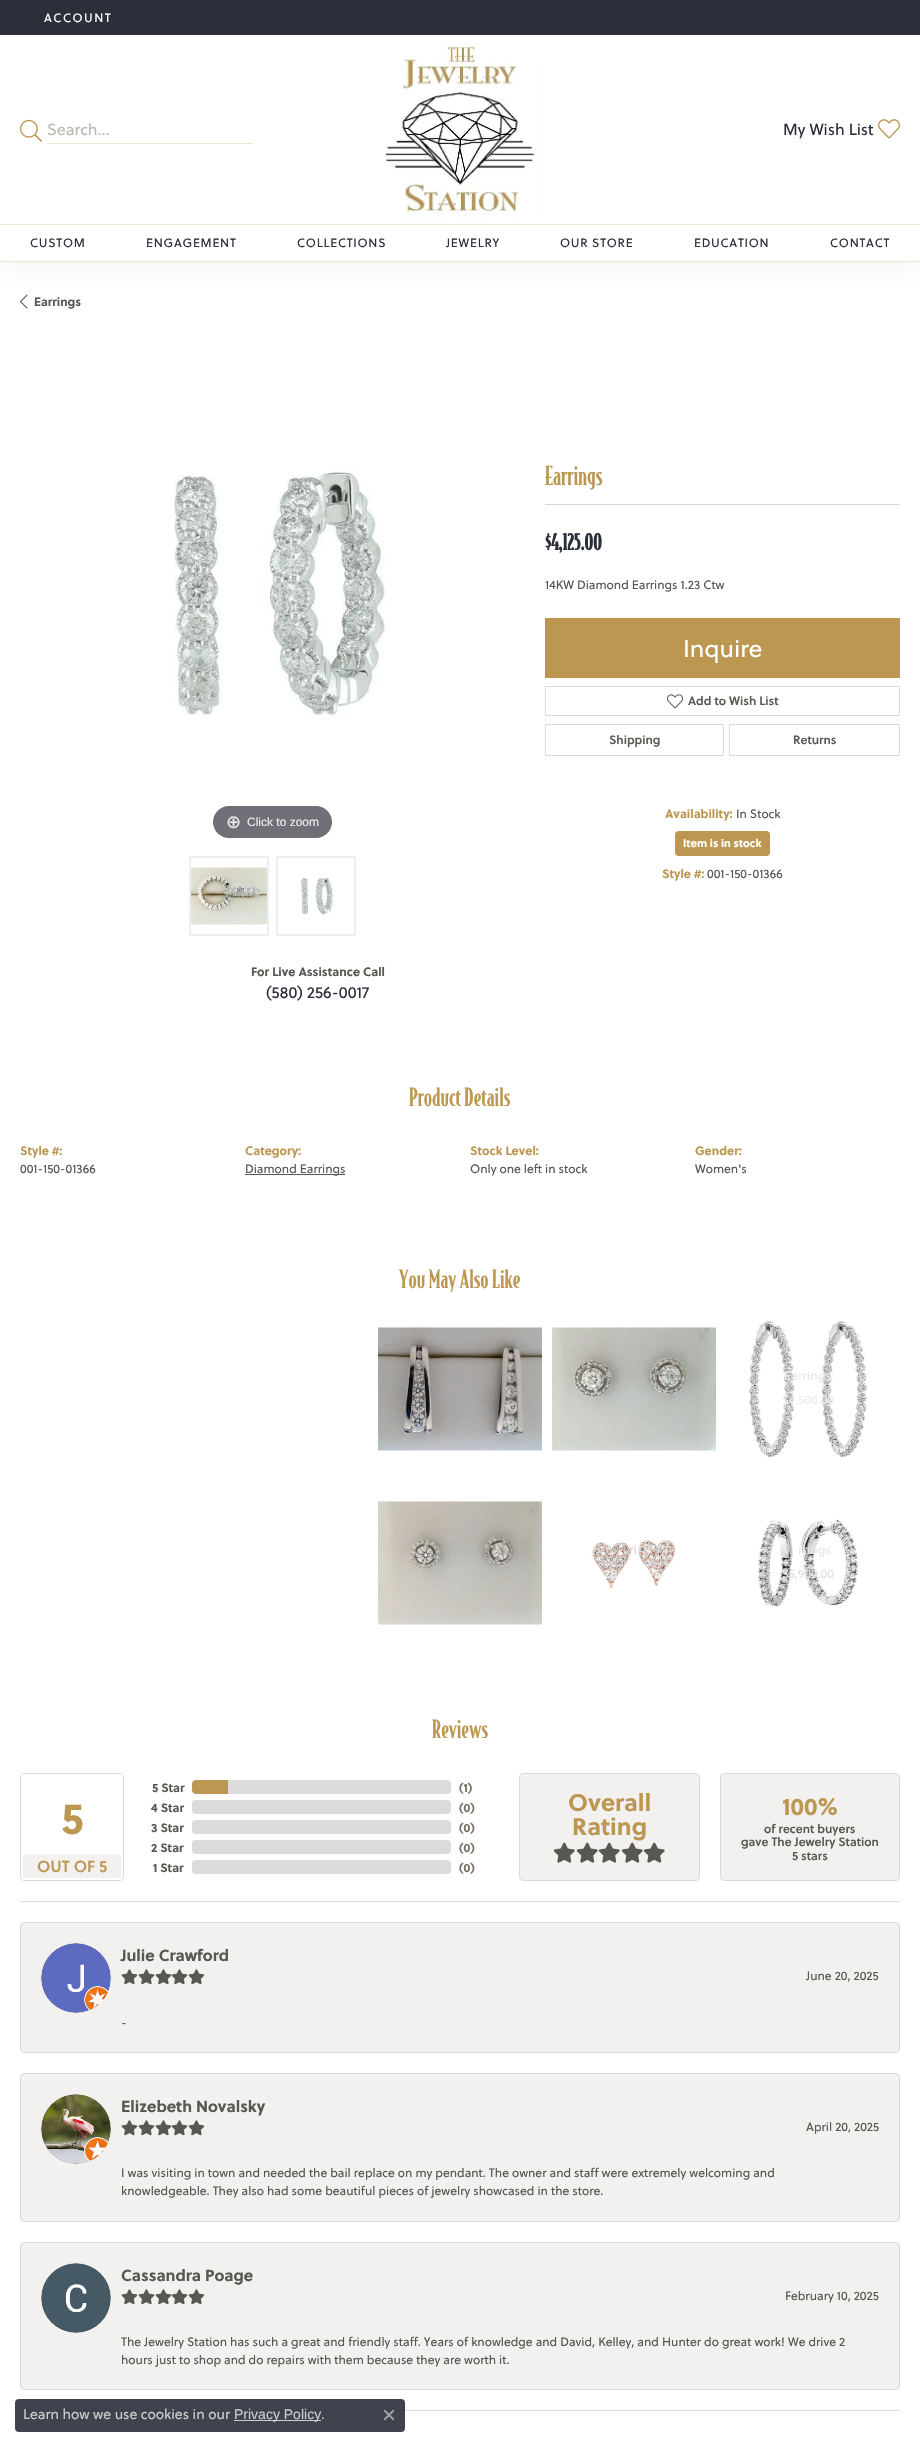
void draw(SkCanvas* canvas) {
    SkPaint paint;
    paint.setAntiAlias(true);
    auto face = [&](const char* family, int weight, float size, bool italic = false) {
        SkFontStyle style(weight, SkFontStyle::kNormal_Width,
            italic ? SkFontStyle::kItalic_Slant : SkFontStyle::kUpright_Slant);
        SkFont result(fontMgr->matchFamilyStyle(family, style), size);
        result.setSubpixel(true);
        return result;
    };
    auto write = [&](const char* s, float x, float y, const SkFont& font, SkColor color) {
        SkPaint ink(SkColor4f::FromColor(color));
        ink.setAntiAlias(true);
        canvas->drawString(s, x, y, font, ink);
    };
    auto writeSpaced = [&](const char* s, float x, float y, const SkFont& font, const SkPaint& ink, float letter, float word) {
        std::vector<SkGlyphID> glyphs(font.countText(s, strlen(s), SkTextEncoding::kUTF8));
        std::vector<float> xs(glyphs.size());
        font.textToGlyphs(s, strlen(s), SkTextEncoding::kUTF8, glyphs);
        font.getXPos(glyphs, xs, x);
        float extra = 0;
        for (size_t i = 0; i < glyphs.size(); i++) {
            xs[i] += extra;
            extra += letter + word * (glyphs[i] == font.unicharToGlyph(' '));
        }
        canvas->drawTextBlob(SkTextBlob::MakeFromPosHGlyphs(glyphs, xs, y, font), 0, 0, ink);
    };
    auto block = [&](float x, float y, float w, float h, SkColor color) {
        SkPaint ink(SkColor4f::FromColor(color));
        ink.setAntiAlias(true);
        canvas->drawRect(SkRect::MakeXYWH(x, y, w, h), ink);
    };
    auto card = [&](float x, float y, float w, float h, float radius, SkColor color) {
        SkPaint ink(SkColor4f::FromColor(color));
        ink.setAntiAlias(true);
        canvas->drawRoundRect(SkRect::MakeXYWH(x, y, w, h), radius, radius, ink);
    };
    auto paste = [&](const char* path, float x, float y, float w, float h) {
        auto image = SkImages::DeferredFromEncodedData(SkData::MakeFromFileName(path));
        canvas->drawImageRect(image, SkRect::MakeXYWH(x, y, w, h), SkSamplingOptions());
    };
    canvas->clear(SkColorSetRGB(43, 47, 58));
    auto kFont1 = face("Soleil", 400, 12);
    paint.setColor(SK_ColorWHITE);
    writeSpaced("ACCOUNT", 44, 22, kFont1, paint, 1.5f, 0);
    block(0, 262, 920, 2185, SK_ColorWHITE);
    paste("pic4.png", 20, 294, 8, 15);
    paint.setColor(SkColorSetARGB(26, 138, 102, 37));
    paint.setMaskFilter(SkMaskFilter::MakeBlur(kNormal_SkBlurStyle, 15));
    canvas->drawRect(SkRect::MakeXYWH(0, 224, 920, 38), paint);
    paint.setMaskFilter(nullptr);
    block(0, 35, 920, 189, SK_ColorWHITE);
    paste("pic1.png", 20, 119, 22, 23);
    block(47, 143, 206, 1, SkColorSetRGB(237, 228, 212));
    auto kFont2 = face("Soleil", 400, 16);
    write("Search...", 47, 135, kFont2, SkColorSetRGB(188, 185, 179));
    paste("pic2.png", 380, 45, 161, 174);
    write("My Wish List", 783, 135, kFont2, SkColorSetRGB(43, 47, 58));
    paste("pic3.png", 878, 119, 22, 20);
    block(0, 225, 920, 36, SK_ColorWHITE);
    block(0, 224, 920, 1, SkColorSetRGB(237, 228, 212));
    block(0, 261, 920, 1, SkColorSetRGB(237, 228, 212));
    paint.setColor(SkColorSetRGB(43, 47, 58));
    writeSpaced("CUSTOM", 30, 247, kFont1, paint, 0.75f, 0);
    writeSpaced("ENGAGEMENT", 146, 247, kFont1, paint, 0.75f, 0);
    writeSpaced("COLLECTIONS", 297, 247, kFont1, paint, 0.75f, 0);
    writeSpaced("JEWELRY", 446, 247, kFont1, paint, 0.75f, 0);
    writeSpaced("OUR STORE", 560, 247, kFont1, paint, 0.75f, 0);
    writeSpaced("EDUCATION", 694, 247, kFont1, paint, 0.75f, 0);
    writeSpaced("CONTACT", 830, 247, kFont1, paint, 0.75f, 0);
    auto kFont3 = face("Soleil", 700, 12);
    write("Earrings", 34, 306, kFont3, SkColorSetRGB(89, 87, 82));
    auto kFont4 = face("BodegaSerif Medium", 500, 25);
    write("Earrings", 545, 485, kFont4, SkColorSetRGB(188, 151, 81));
    block(545, 504, 355, 1, SkColorSetRGB(217, 215, 213));
    auto kFont5 = face("BodegaSerif Medium", 700, 21);
    write("$4,125.00", 545, 550, kFont5, SkColorSetRGB(43, 47, 58));
    auto kFont6 = face("Soleil", 400, 12.12f);
    write("14KW Diamond Earrings 1.23 Ctw", 545, 589, kFont6, SkColorSetRGB(89, 87, 82));
    block(545, 618, 355, 60, SkColorSetRGB(188, 151, 81));
    auto kFont7 = face("Soleil", 400, 24);
    write("Inquire", 683, 657, kFont7, SK_ColorWHITE);
    paint.setStyle(SkPaint::kStroke_Style);
    paint.setStrokeWidth(1);
    paint.setColor(SkColorSetRGB(221, 219, 217));
    canvas->drawRect(SkRect::MakeXYWH(545.5f, 686.5f, 354, 29), paint);
    paste("pic5.png", 667, 694, 16, 15);
    auto kFont8 = face("Soleil", 600, 12);
    write("Add to Wish List", 688, 705, kFont8, SkColorSetRGB(89, 87, 82));
    canvas->drawRect(SkRect::MakeXYWH(545.5f, 724.5f, 178, 31), paint);
    write("Shipping", 609, 744, kFont8, SkColorSetRGB(89, 87, 82));
    canvas->drawRect(SkRect::MakeXYWH(729.5f, 724.5f, 170, 31), paint);
    write("Returns", 793, 744, kFont8, SkColorSetRGB(89, 87, 82));
    auto kFont9 = face("Soleil", 700, 12.12f);
    write("Availability:", 665, 818, kFont9, SkColorSetRGB(188, 151, 81));
    write("In Stock", 736, 818, kFont6, SkColorSetRGB(89, 87, 82));
    card(675, 831, 95, 25, 4, SkColorSetRGB(188, 151, 81));
    auto kFont10 = face("Soleil", 700, 11);
    write("Item is in stock", 683, 847, kFont10, SK_ColorWHITE);
    write("Style #:", 662, 878, kFont9, SkColorSetRGB(188, 151, 81));
    write("001-150-01366", 707, 878, kFont6, SkColorSetRGB(89, 87, 82));
    paste("pic6.png", 174, 470, 213, 247);
    card(213, 806, 119, 32, 16, SkColorSetRGB(111, 112, 119));
    auto kFont11 = face("DejaVu Sans", 400, 18);
    write("⊕", 226, 828, kFont11, SkColorSetRGB(238, 238, 238));
    auto kFont12 = face("Liberation Sans", 400, 12);
    write("Click to zoom", 247, 826, kFont12, SkColorSetRGB(238, 238, 238));
    paint.setStrokeWidth(2);
    paint.setColor(SkColorSetRGB(238, 238, 238));
    canvas->drawRect(SkRect::MakeXYWH(190, 857, 78, 78), paint);
    paste("pic7.png", 191, 867, 76, 58);
    canvas->drawRect(SkRect::MakeXYWH(277, 857, 78, 78), paint);
    paste("pic8.png", 301, 878, 32, 37);
    write("For Live Assistance Call", 251, 976, kFont9, SkColorSetRGB(89, 87, 82));
    write("(580) 256-0017", 266, 998, kFont2, SkColorSetRGB(43, 47, 58));
    auto kFont13 = face("BodegaSerif Medium", 500, 24);
    write("Product Details", 409, 1106, kFont13, SkColorSetRGB(188, 151, 81));
    write("Style #:", 20, 1155, kFont9, SkColorSetRGB(188, 151, 81));
    write("001-150-01366", 20, 1173, kFont6, SkColorSetRGB(89, 87, 82));
    write("Category:", 245, 1155, kFont9, SkColorSetRGB(188, 151, 81));
    block(245, 1174, 100, 1, SkColorSetRGB(89, 87, 82));
    write("Diamond Earrings", 245, 1173, kFont6, SkColorSetRGB(89, 87, 82));
    write("Stock Level:", 470, 1155, kFont9, SkColorSetRGB(188, 151, 81));
    write("Only one left in stock", 470, 1173, kFont6, SkColorSetRGB(89, 87, 82));
    write("Gender:", 695, 1155, kFont9, SkColorSetRGB(188, 151, 81));
    write("Women's", 695, 1173, kFont6, SkColorSetRGB(89, 87, 82));
    write("You May Also Like", 399, 1288, kFont13, SkColorSetRGB(188, 151, 81));
    paste("pic9.png", 378, 1327, 164, 124);
    paste("pic10.png", 552, 1327, 164, 124);
    auto kFont14 = face("Soleil", 400, 12.5f);
    write("s", 652, 1380, kFont14, SkColorSetRGB(172, 174, 168));
    paste("pic11.png", 749, 1321, 118, 137);
    write("Earrings", 784, 1380, kFont14, SkColorSetRGB(232, 232, 232));
    write("$4,500.00", 782, 1404, kFont6, SkColorSetRGB(238, 238, 238));
    paste("pic12.png", 378, 1500, 164, 125);
    paste("pic13.png", 591, 1540, 86, 49);
    write("ri", 629, 1554, kFont14, SkColorSetRGB(217, 207, 203));
    write("25", 604, 1578, kFont6, SkColorSetRGB(238, 238, 238));
    write("75", 649, 1578, kFont6, SkColorSetRGB(245, 242, 240));
    paste("pic14.png", 757, 1519, 102, 89);
    write("rrings", 798, 1554, kFont14, SkColorSetRGB(232, 232, 232));
    write("$5,900.00", 782, 1578, kFont6, SkColorSetRGB(225, 225, 224));
    write("Reviews", 432, 1738, kFont13, SkColorSetRGB(188, 151, 81));
    paint.setStrokeWidth(1);
    paint.setColor(SkColorSetRGB(221, 219, 217));
    canvas->drawRoundRect(SkRect::MakeXYWH(20.5f, 1773.5f, 103, 107), 3.5f, 3.5f, paint);
    auto kFont15 = face("Soleil", 700, 44);
    write("5", 61, 1834, kFont15, SkColorSetRGB(188, 151, 81));
    card(23, 1854, 98, 24, 2, SkColorSetRGB(242, 241, 240));
    auto kFont16 = face("Soleil", 600, 16);
    write("OUT OF 5", 37, 1872, kFont16, SkColorSetRGB(188, 151, 81));
    write("5 Star", 152, 1792, kFont3, SkColorSetRGB(89, 87, 82));
    write("4 Star", 151, 1812, kFont3, SkColorSetRGB(89, 87, 82));
    write("3 Star", 151, 1832, kFont3, SkColorSetRGB(89, 87, 82));
    write("2 Star", 151, 1852, kFont3, SkColorSetRGB(89, 87, 82));
    write("1 Star", 153, 1872, kFont3, SkColorSetRGB(89, 87, 82));
    card(192, 1780, 259, 14, 4, SkColorSetRGB(221, 219, 217));
    paint.setStyle(SkPaint::kFill_Style);
    paint.setColor(SkColorSetRGB(188, 151, 81));
    canvas->drawPath(SkPathBuilder().moveTo(196, 1780).lineTo(228, 1780).lineTo(228, 1794).lineTo(196, 1794).cubicTo(194, 1794, 192, 1792, 192, 1790).lineTo(192, 1784).cubicTo(192, 1782, 194, 1780, 196, 1780).close().detach(), paint);
    card(192, 1800, 259, 14, 4, SkColorSetRGB(221, 219, 217));
    card(192, 1820, 259, 14, 4, SkColorSetRGB(221, 219, 217));
    card(192, 1840, 259, 14, 4, SkColorSetRGB(221, 219, 217));
    card(192, 1860, 259, 14, 4, SkColorSetRGB(221, 219, 217));
    write("(1)", 459, 1792, kFont3, SkColorSetRGB(119, 113, 102));
    write("(0)", 459, 1812, kFont3, SkColorSetRGB(119, 113, 102));
    write("(0)", 459, 1832, kFont3, SkColorSetRGB(119, 113, 102));
    write("(0)", 459, 1852, kFont3, SkColorSetRGB(119, 113, 102));
    write("(0)", 459, 1872, kFont3, SkColorSetRGB(119, 113, 102));
    paint.setColor(SkColorSetRGB(242, 241, 240));
    canvas->drawRoundRect(SkRect::MakeXYWH(519.5f, 1773.5f, 180, 107), 3.5f, 3.5f, paint);
    paint.setStyle(SkPaint::kStroke_Style);
    paint.setColor(SkColorSetRGB(221, 219, 217));
    canvas->drawRoundRect(SkRect::MakeXYWH(519.5f, 1773.5f, 180, 107), 3.5f, 3.5f, paint);
    auto kFont17 = face("Soleil", 700, 24);
    write("Overall", 568, 1811, kFont17, SkColorSetRGB(188, 151, 81));
    write("Rating", 572, 1835, kFont17, SkColorSetRGB(188, 151, 81));
    paste("pic15.png", 553, 1842, 22, 21);
    paste("pic15.png", 576, 1842, 22, 21);
    paste("pic15.png", 598, 1842, 22, 21);
    paste("pic15.png", 621, 1842, 22, 21);
    paste("pic15.png", 643, 1842, 22, 21);
    paint.setStyle(SkPaint::kFill_Style);
    paint.setColor(SkColorSetRGB(242, 241, 240));
    canvas->drawRoundRect(SkRect::MakeXYWH(720.5f, 1773.5f, 179, 107), 3.5f, 3.5f, paint);
    paint.setStyle(SkPaint::kStroke_Style);
    paint.setColor(SkColorSetRGB(221, 219, 217));
    canvas->drawRoundRect(SkRect::MakeXYWH(720.5f, 1773.5f, 179, 107), 3.5f, 3.5f, paint);
    write("100%", 782, 1815, kFont17, SkColorSetRGB(188, 151, 81));
    write("of recent buyers", 764, 1833, kFont8, SkColorSetRGB(89, 87, 82));
    write("gave The Jewelry Station", 741, 1846, kFont8, SkColorSetRGB(89, 87, 82));
    write("5 stars", 792, 1860, kFont8, SkColorSetRGB(89, 87, 82));
    block(20, 1901, 880, 1, SkColorSetRGB(221, 219, 217));
    block(20, 2410, 880, 1, SkColorSetRGB(221, 219, 217));
    paint.setStyle(SkPaint::kFill_Style);
    paint.setColor(SkColorSetRGB(242, 241, 240));
    canvas->drawRoundRect(SkRect::MakeXYWH(20.5f, 1922.5f, 879, 130), 3.5f, 3.5f, paint);
    paint.setStyle(SkPaint::kStroke_Style);
    paint.setColor(SkColorSetRGB(221, 219, 217));
    canvas->drawRoundRect(SkRect::MakeXYWH(20.5f, 1922.5f, 879, 130), 3.5f, 3.5f, paint);
    paste("pic16.png", 41, 1943, 70, 70);
    auto kFont18 = face("Soleil", 700, 16);
    write("Julie Crawford", 121, 1961, kFont18, SkColorSetRGB(89, 87, 82));
    paste("pic17.png", 121, 1969, 17, 16);
    paste("pic17.png", 138, 1969, 17, 16);
    paste("pic17.png", 155, 1969, 17, 16);
    paste("pic18.png", 171, 1969, 17, 16);
    paste("pic17.png", 188, 1969, 17, 16);
    write("June 20, 2025", 806, 1980, kFont6, SkColorSetRGB(89, 87, 82));
    write("-", 121, 2027, kFont6, SkColorSetRGB(89, 87, 82));
    paint.setStyle(SkPaint::kFill_Style);
    paint.setColor(SkColorSetRGB(242, 241, 240));
    canvas->drawRoundRect(SkRect::MakeXYWH(20.5f, 2073.5f, 879, 148), 3.5f, 3.5f, paint);
    paint.setStyle(SkPaint::kStroke_Style);
    paint.setColor(SkColorSetRGB(221, 219, 217));
    canvas->drawRoundRect(SkRect::MakeXYWH(20.5f, 2073.5f, 879, 148), 3.5f, 3.5f, paint);
    paste("pic19.png", 41, 2094, 70, 70);
    write("Elizebeth Novalsky", 121, 2112, kFont18, SkColorSetRGB(89, 87, 82));
    paste("pic17.png", 121, 2120, 17, 16);
    paste("pic17.png", 138, 2120, 17, 16);
    paste("pic17.png", 155, 2120, 17, 16);
    paste("pic18.png", 171, 2120, 17, 16);
    paste("pic17.png", 188, 2120, 17, 16);
    write("April 20, 2025", 806, 2131, kFont6, SkColorSetRGB(89, 87, 82));
    write("I was visiting in town and needed the bail replace on my pendant. The owner and staff were extremely welcoming and", 121, 2177, kFont6, SkColorSetRGB(89, 87, 82));
    write("knowledgeable. They also had some beautiful pieces of jewelry showcased in the store.", 121, 2195, kFont6, SkColorSetRGB(89, 87, 82));
    paint.setStyle(SkPaint::kFill_Style);
    paint.setColor(SkColorSetRGB(242, 241, 240));
    canvas->drawRoundRect(SkRect::MakeXYWH(20.5f, 2242.5f, 879, 147), 3.5f, 3.5f, paint);
    paint.setStyle(SkPaint::kStroke_Style);
    paint.setColor(SkColorSetRGB(221, 219, 217));
    canvas->drawRoundRect(SkRect::MakeXYWH(20.5f, 2242.5f, 879, 147), 3.5f, 3.5f, paint);
    paste("pic20.png", 41, 2263, 70, 70);
    write("Cassandra Poage", 121, 2281, kFont18, SkColorSetRGB(89, 87, 82));
    paste("pic17.png", 121, 2289, 17, 16);
    paste("pic17.png", 138, 2289, 17, 16);
    paste("pic17.png", 155, 2289, 17, 16);
    paste("pic18.png", 171, 2289, 17, 16);
    paste("pic17.png", 188, 2289, 17, 16);
    write("February 10, 2025", 785, 2300, kFont6, SkColorSetRGB(89, 87, 82));
    write("The Jewelry Station has such a great and friendly staff. Years of knowledge and David, Kelley, and Hunter do great work! We drive 2", 121, 2346, kFont6, SkColorSetRGB(89, 87, 82));
    write("hours just to shop and do repairs with them because they are worth it.", 121, 2364, kFont6, SkColorSetRGB(89, 87, 82));
    card(15, 2399, 390, 33, 4, SkColorSetARGB(230, 43, 47, 58));
    auto kFont19 = face("Soleil", 400, 14);
    write("Learn how we use cookies in our", 23, 2419, kFont19, SkColorSetRGB(204, 204, 204));
    block(234, 2420, 87, 1, SkColorSetRGB(204, 204, 204));
    auto kFont20 = face("Liberation Sans", 400, 14);
    write("Privacy Policy", 234, 2419, kFont20, SkColorSetRGB(204, 204, 204));
    write(".", 321, 2419, kFont19, SkColorSetRGB(204, 204, 204));
    paste("pic21.png", 383, 2409, 12, 12);
}
